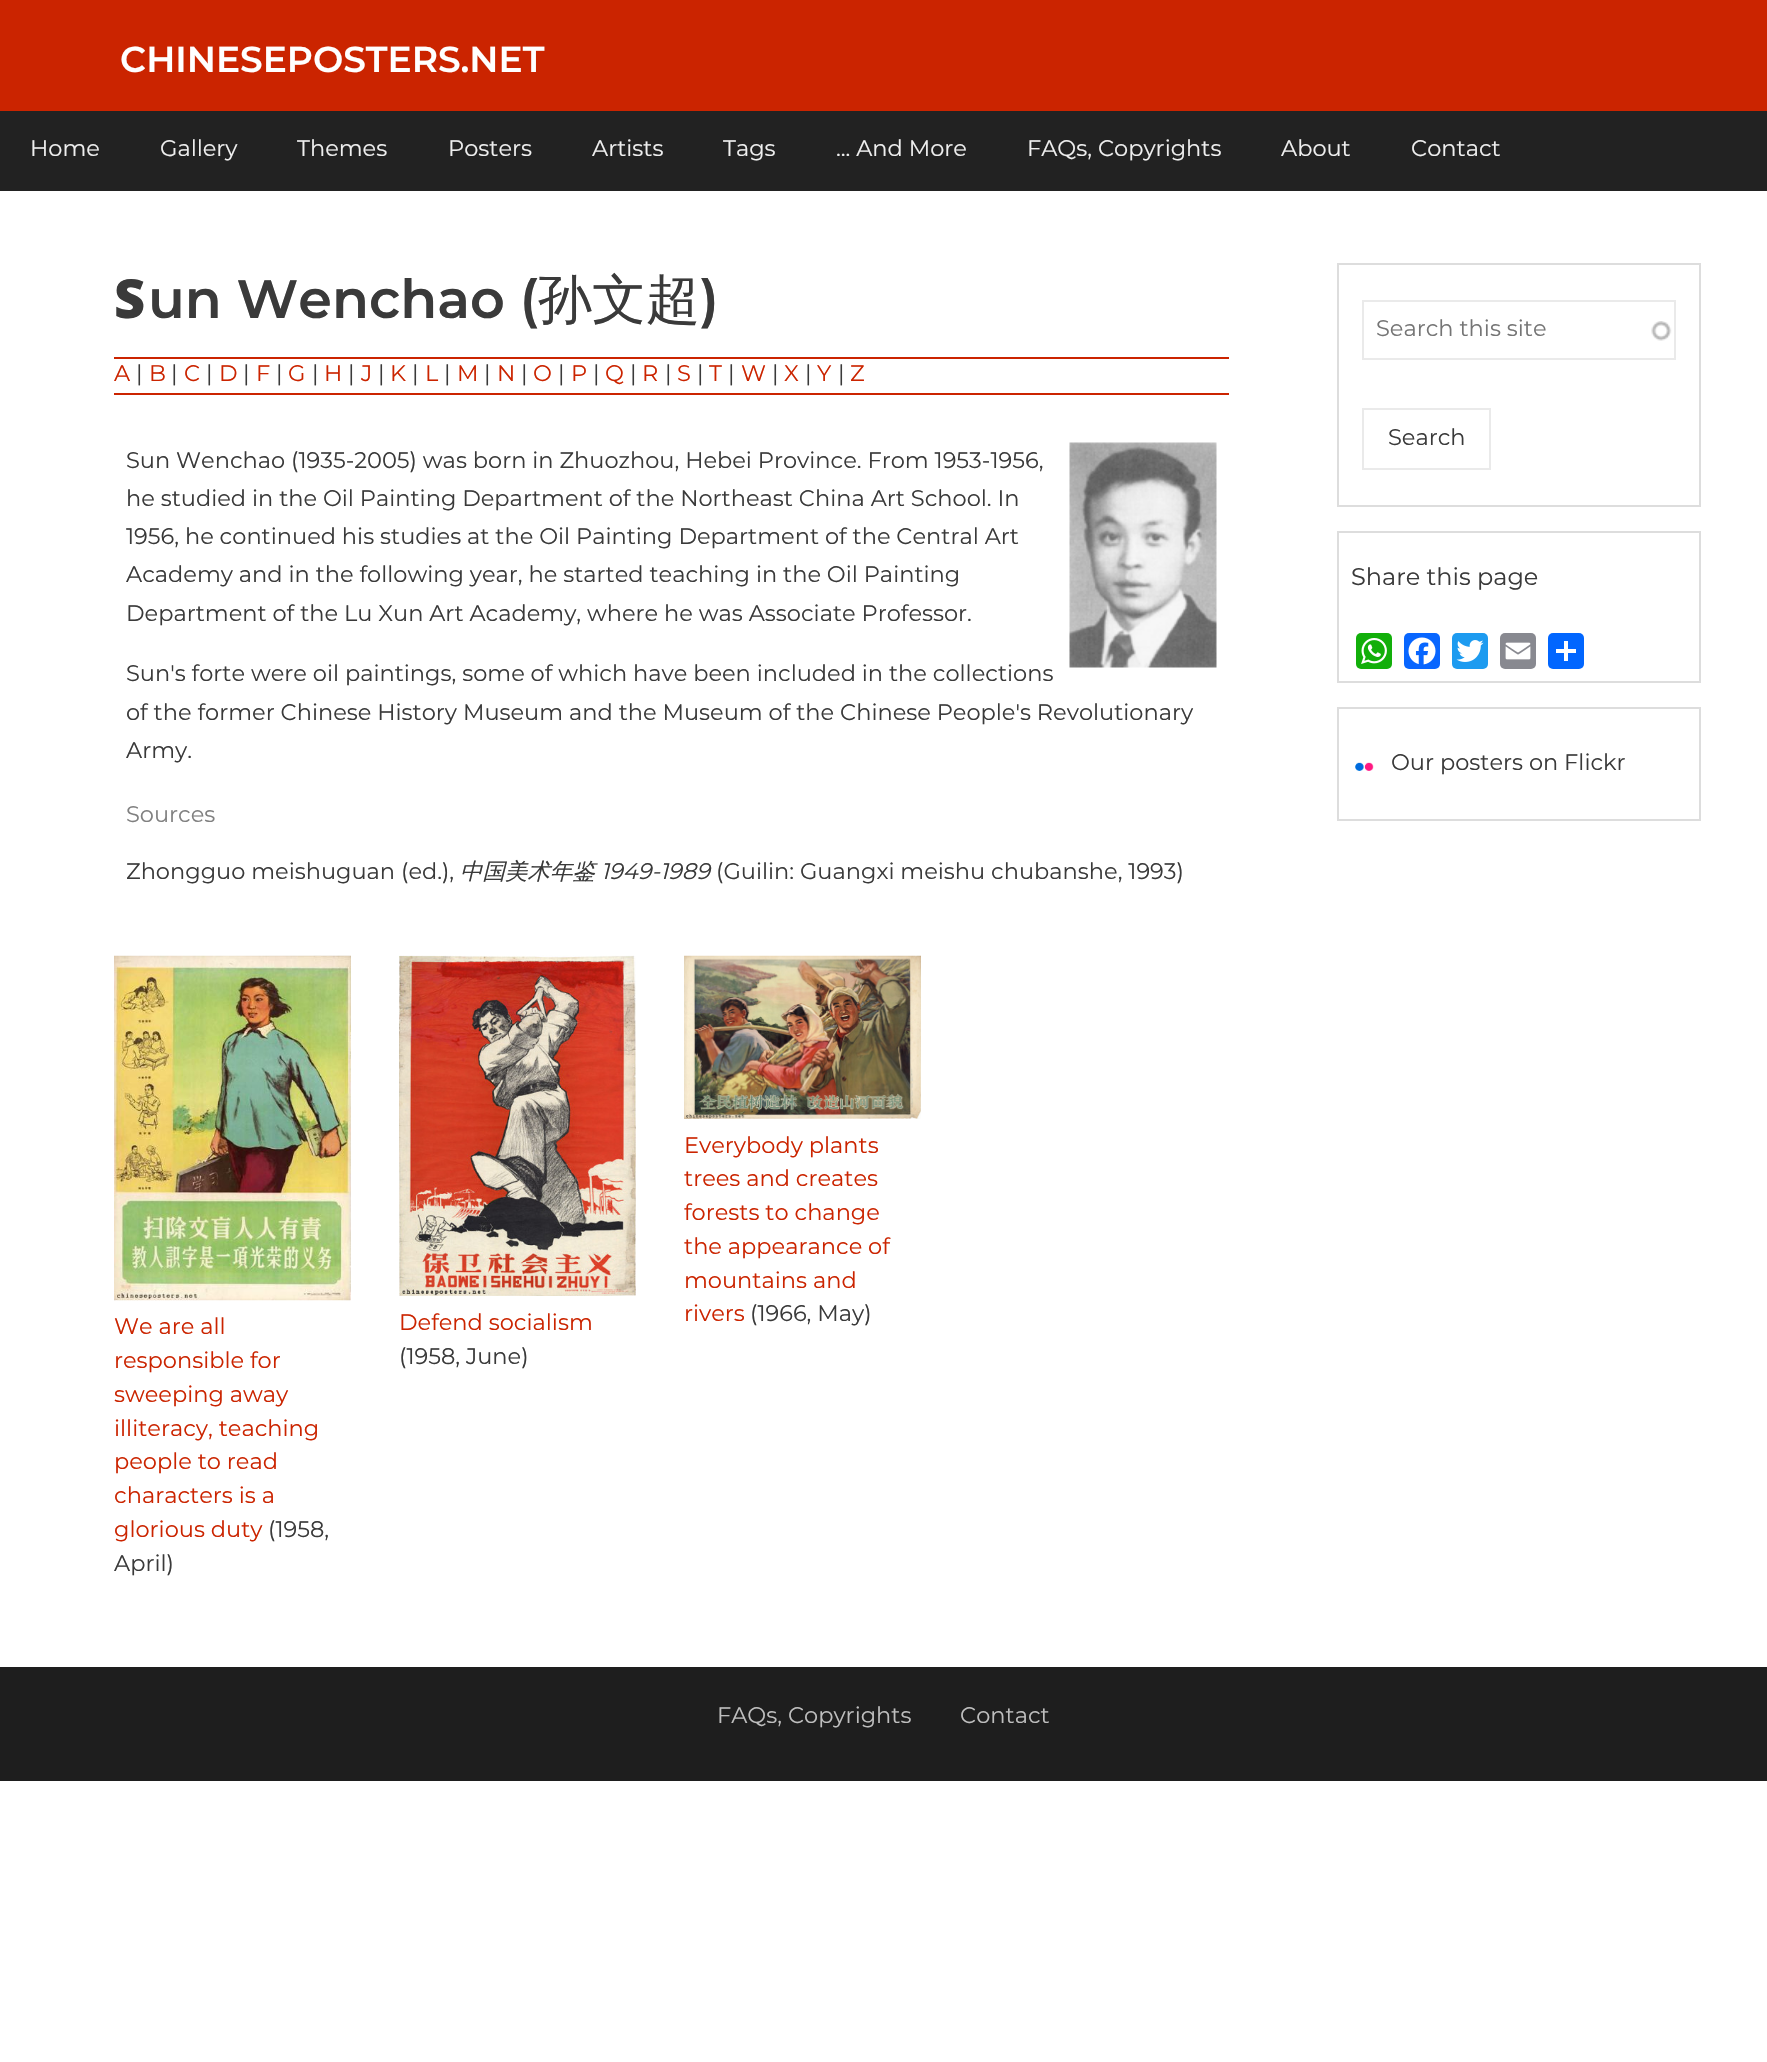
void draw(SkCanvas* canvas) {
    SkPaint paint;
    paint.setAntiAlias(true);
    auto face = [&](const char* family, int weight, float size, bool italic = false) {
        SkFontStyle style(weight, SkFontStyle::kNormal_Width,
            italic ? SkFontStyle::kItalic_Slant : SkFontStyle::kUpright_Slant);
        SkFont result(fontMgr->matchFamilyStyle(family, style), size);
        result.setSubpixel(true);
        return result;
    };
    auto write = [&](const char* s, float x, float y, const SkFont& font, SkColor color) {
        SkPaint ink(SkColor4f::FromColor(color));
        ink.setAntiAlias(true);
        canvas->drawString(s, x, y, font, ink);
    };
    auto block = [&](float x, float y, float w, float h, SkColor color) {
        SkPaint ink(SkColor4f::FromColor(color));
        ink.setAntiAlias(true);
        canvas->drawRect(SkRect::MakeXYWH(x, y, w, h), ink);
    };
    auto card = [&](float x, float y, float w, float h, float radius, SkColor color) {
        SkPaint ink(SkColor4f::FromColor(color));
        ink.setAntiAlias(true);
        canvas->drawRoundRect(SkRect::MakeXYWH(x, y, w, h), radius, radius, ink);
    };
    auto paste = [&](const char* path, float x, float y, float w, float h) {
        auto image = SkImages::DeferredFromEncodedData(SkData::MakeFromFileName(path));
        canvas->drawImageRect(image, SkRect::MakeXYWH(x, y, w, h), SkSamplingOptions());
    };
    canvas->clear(SK_ColorWHITE);
    block(0, 0, 1767, 111, SkColorSetRGB(203, 36, 0));
    auto kFont1 = face("Montserrat", 600, 36);
    write("CHINESEPOSTERS.NET", 120, 72, kFont1, SK_ColorWHITE);
    block(0, 111, 1767, 80, SkColorSetRGB(34, 34, 34));
    auto kFont2 = face("Montserrat", 400, 22.5f);
    write("Home", 30, 156, kFont2, SkColorSetRGB(239, 239, 239));
    write("Gallery", 160, 156, kFont2, SkColorSetRGB(239, 239, 239));
    write("Themes", 297, 156, kFont2, SkColorSetRGB(239, 239, 239));
    write("Posters", 448, 156, kFont2, SkColorSetRGB(239, 239, 239));
    write("Artists", 592, 156, kFont2, SkColorSetRGB(239, 239, 239));
    write("Tags", 723, 156, kFont2, SkColorSetRGB(239, 239, 239));
    write("... And More", 836, 156, kFont2, SkColorSetRGB(239, 239, 239));
    write("FAQs, Copyrights", 1027, 156, kFont2, SkColorSetRGB(239, 239, 239));
    write("About", 1281, 156, kFont2, SkColorSetRGB(239, 239, 239));
    write("Contact", 1411, 156, kFont2, SkColorSetRGB(239, 239, 239));
    auto kFont3 = face("Noto Sans", 900, 54);
    write("S", 114, 318, kFont3, SkColorSetRGB(58, 58, 58));
    auto kFont4 = face("Montserrat", 600, 54);
    write("un Wenchao (", 148, 318, kFont4, SkColorSetRGB(58, 58, 58));
    auto kFont5 = face("WenQuanYi Zen Hei", 500, 54);
    write("孙文超", 538, 318, kFont5, SkColorSetRGB(58, 58, 58));
    write(")", 700, 318, kFont4, SkColorSetRGB(58, 58, 58));
    block(114, 357, 1115, 2, SkColorSetRGB(203, 36, 0));
    block(114, 393, 1115, 2, SkColorSetRGB(203, 36, 0));
    write("A", 114, 381, kFont2, SkColorSetRGB(203, 36, 0));
    write("|", 136, 381, kFont2, SkColorSetRGB(58, 58, 58));
    write("B", 149, 381, kFont2, SkColorSetRGB(203, 36, 0));
    write("|", 171, 381, kFont2, SkColorSetRGB(58, 58, 58));
    write("C", 184, 381, kFont2, SkColorSetRGB(203, 36, 0));
    write("|", 206, 381, kFont2, SkColorSetRGB(58, 58, 58));
    write("D", 219, 381, kFont2, SkColorSetRGB(203, 36, 0));
    write("|", 243, 381, kFont2, SkColorSetRGB(58, 58, 58));
    write("F", 256, 381, kFont2, SkColorSetRGB(203, 36, 0));
    write("|", 276, 381, kFont2, SkColorSetRGB(58, 58, 58));
    write("G", 288, 381, kFont2, SkColorSetRGB(203, 36, 0));
    write("|", 312, 381, kFont2, SkColorSetRGB(58, 58, 58));
    write("H", 324, 381, kFont2, SkColorSetRGB(203, 36, 0));
    write("|", 348, 381, kFont2, SkColorSetRGB(58, 58, 58));
    write("J", 361, 381, kFont2, SkColorSetRGB(203, 36, 0));
    write("|", 378, 381, kFont2, SkColorSetRGB(58, 58, 58));
    write("K", 390, 381, kFont2, SkColorSetRGB(203, 36, 0));
    write("|", 412, 381, kFont2, SkColorSetRGB(58, 58, 58));
    write("L", 425, 381, kFont2, SkColorSetRGB(203, 36, 0));
    write("|", 444, 381, kFont2, SkColorSetRGB(58, 58, 58));
    write("M", 457, 381, kFont2, SkColorSetRGB(203, 36, 0));
    write("|", 484, 381, kFont2, SkColorSetRGB(58, 58, 58));
    write("N", 497, 381, kFont2, SkColorSetRGB(203, 36, 0));
    write("|", 521, 381, kFont2, SkColorSetRGB(58, 58, 58));
    write("O", 533, 381, kFont2, SkColorSetRGB(203, 36, 0));
    write("|", 558, 381, kFont2, SkColorSetRGB(58, 58, 58));
    write("P", 571, 381, kFont2, SkColorSetRGB(203, 36, 0));
    write("|", 593, 381, kFont2, SkColorSetRGB(58, 58, 58));
    write("Q", 605, 381, kFont2, SkColorSetRGB(203, 36, 0));
    write("|", 630, 381, kFont2, SkColorSetRGB(58, 58, 58));
    write("R", 642, 381, kFont2, SkColorSetRGB(203, 36, 0));
    write("|", 665, 381, kFont2, SkColorSetRGB(58, 58, 58));
    write("S", 677, 381, kFont2, SkColorSetRGB(203, 36, 0));
    write("|", 697, 381, kFont2, SkColorSetRGB(58, 58, 58));
    write("T", 709, 381, kFont2, SkColorSetRGB(203, 36, 0));
    write("|", 728, 381, kFont2, SkColorSetRGB(58, 58, 58));
    write("W", 741, 381, kFont2, SkColorSetRGB(203, 36, 0));
    write("|", 772, 381, kFont2, SkColorSetRGB(58, 58, 58));
    write("X", 784, 381, kFont2, SkColorSetRGB(203, 36, 0));
    write("|", 805, 381, kFont2, SkColorSetRGB(58, 58, 58));
    write("Y", 817, 381, kFont2, SkColorSetRGB(203, 36, 0));
    write("|", 838, 381, kFont2, SkColorSetRGB(58, 58, 58));
    write("Z", 850, 381, kFont2, SkColorSetRGB(203, 36, 0));
    write("Sun Wenchao (1935-2005) was born in Zhuozhou, Hebei Province. From 1953-1956,", 126, 468, kFont2, SkColorSetRGB(58, 58, 58));
    paste("pic1.png", 1069, 442, 148, 226);
    write("he studied in the Oil Painting Department of the Northeast China Art School. In", 126, 506, kFont2, SkColorSetRGB(58, 58, 58));
    write("1956, he continued his studies at the Oil Painting Department of the Central Art", 126, 544, kFont2, SkColorSetRGB(58, 58, 58));
    write("Academy and in the following year, he started teaching in the Oil Painting", 126, 582, kFont2, SkColorSetRGB(58, 58, 58));
    write("Department of the Lu Xun Art Academy, where he was Associate Professor.", 126, 621, kFont2, SkColorSetRGB(58, 58, 58));
    write("Sun's forte were oil paintings, some of which have been included in the collections", 126, 681, kFont2, SkColorSetRGB(58, 58, 58));
    write("of the former Chinese History Museum and the Museum of the Chinese People's Revolutionary", 126, 720, kFont2, SkColorSetRGB(58, 58, 58));
    write("Army.", 126, 758, kFont2, SkColorSetRGB(58, 58, 58));
    write("Sources", 126, 822, kFont2, SkColorSetRGB(128, 128, 128));
    write("Zhongguo meishuguan (ed.),", 126, 879, kFont2, SkColorSetRGB(58, 58, 58));
    auto kFont6 = face("WenQuanYi Zen Hei", 500, 22.5f, true);
    write("中国美术年鉴", 460, 879, kFont6, SkColorSetRGB(58, 58, 58));
    auto kFont7 = face("Montserrat", 400, 22.5f, true);
    write("1949-1989", 601, 879, kFont7, SkColorSetRGB(58, 58, 58));
    write("(Guilin: Guangxi meishu chubanshe, 1993)", 716, 879, kFont2, SkColorSetRGB(58, 58, 58));
    paste("pic2.png", 684, 955, 237, 164);
    write("Everybody plants", 684, 1153, kFont2, SkColorSetRGB(203, 36, 0));
    write("trees and creates", 684, 1186, kFont2, SkColorSetRGB(203, 36, 0));
    write("forests to change", 684, 1220, kFont2, SkColorSetRGB(203, 36, 0));
    write("the appearance of", 684, 1254, kFont2, SkColorSetRGB(203, 36, 0));
    write("mountains and", 684, 1288, kFont2, SkColorSetRGB(203, 36, 0));
    write("rivers", 684, 1321, kFont2, SkColorSetRGB(203, 36, 0));
    write("(1966, May)", 750, 1321, kFont2, SkColorSetRGB(58, 58, 58));
    paste("pic3.png", 114, 955, 237, 346);
    write("We are all", 114, 1334, kFont2, SkColorSetRGB(203, 36, 0));
    write("responsible for", 114, 1368, kFont2, SkColorSetRGB(203, 36, 0));
    write("sweeping away", 114, 1402, kFont2, SkColorSetRGB(203, 36, 0));
    write("illiteracy, teaching", 114, 1436, kFont2, SkColorSetRGB(203, 36, 0));
    write("people to read", 114, 1469, kFont2, SkColorSetRGB(203, 36, 0));
    write("characters is a", 114, 1503, kFont2, SkColorSetRGB(203, 36, 0));
    write("glorious duty", 114, 1537, kFont2, SkColorSetRGB(203, 36, 0));
    write("(1958,", 268, 1537, kFont2, SkColorSetRGB(58, 58, 58));
    write("April)", 114, 1571, kFont2, SkColorSetRGB(58, 58, 58));
    paste("pic4.png", 399, 955, 237, 341);
    write("Defend socialism", 399, 1330, kFont2, SkColorSetRGB(203, 36, 0));
    write("(1958, June)", 399, 1364, kFont2, SkColorSetRGB(58, 58, 58));
    paint.setStyle(SkPaint::kStroke_Style);
    paint.setStrokeWidth(2);
    paint.setColor(SkColorSetRGB(221, 221, 221));
    canvas->drawRect(SkRect::MakeXYWH(1338, 264, 362, 242), paint);
    paste("pic5.png", 1651, 321, 21, 20);
    paint.setColor(SkColorSetRGB(234, 234, 234));
    canvas->drawRect(SkRect::MakeXYWH(1363, 301, 312, 58), paint);
    write("Search this site", 1376, 336, kFont2, SkColorSetRGB(117, 117, 117));
    canvas->drawRect(SkRect::MakeXYWH(1363, 409, 127, 60), paint);
    write("Search", 1388, 445, kFont2, SkColorSetRGB(58, 58, 58));
    paint.setColor(SkColorSetRGB(221, 221, 221));
    canvas->drawRect(SkRect::MakeXYWH(1338, 532, 362, 150), paint);
    auto kFont8 = face("Montserrat", 400, 24);
    write("Share this page", 1351, 585, kFont8, SkColorSetRGB(58, 58, 58));
    card(1356, 633, 36, 36, 5, SkColorSetRGB(18, 175, 10));
    paste("pic6.png", 1361, 638, 26, 26);
    card(1404, 633, 36, 36, 5, SkColorSetRGB(8, 102, 255));
    paste("pic7.png", 1408, 637, 28, 28);
    card(1452, 633, 36, 36, 5, SkColorSetRGB(29, 155, 240));
    paste("pic8.png", 1456, 640, 28, 22);
    card(1500, 633, 36, 36, 5, SkColorSetRGB(136, 137, 144));
    paste("pic9.png", 1505, 642, 26, 18);
    card(1548, 633, 36, 36, 5, SkColorSetRGB(1, 102, 255));
    block(1564, 641, 4, 20, SK_ColorWHITE);
    block(1556, 649, 20, 4, SK_ColorWHITE);
    canvas->drawRect(SkRect::MakeXYWH(1338, 708, 362, 112), paint);
    paste("pic10.png", 1355, 762, 19, 9);
    write("Our posters on Flickr", 1391, 770, kFont2, SkColorSetRGB(58, 58, 58));
    block(0, 1667, 1767, 114, SkColorSetRGB(30, 30, 30));
    write("FAQs, Copyrights", 717, 1723, kFont2, SkColorSetRGB(190, 190, 190));
    write("Contact", 960, 1723, kFont2, SkColorSetRGB(190, 190, 190));
}
